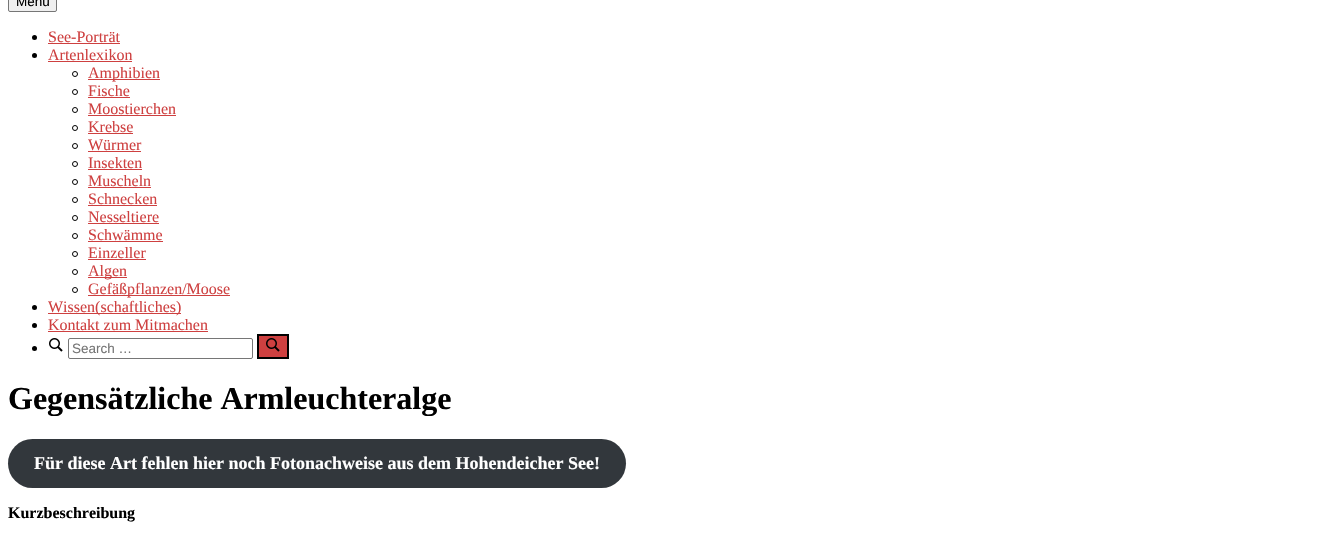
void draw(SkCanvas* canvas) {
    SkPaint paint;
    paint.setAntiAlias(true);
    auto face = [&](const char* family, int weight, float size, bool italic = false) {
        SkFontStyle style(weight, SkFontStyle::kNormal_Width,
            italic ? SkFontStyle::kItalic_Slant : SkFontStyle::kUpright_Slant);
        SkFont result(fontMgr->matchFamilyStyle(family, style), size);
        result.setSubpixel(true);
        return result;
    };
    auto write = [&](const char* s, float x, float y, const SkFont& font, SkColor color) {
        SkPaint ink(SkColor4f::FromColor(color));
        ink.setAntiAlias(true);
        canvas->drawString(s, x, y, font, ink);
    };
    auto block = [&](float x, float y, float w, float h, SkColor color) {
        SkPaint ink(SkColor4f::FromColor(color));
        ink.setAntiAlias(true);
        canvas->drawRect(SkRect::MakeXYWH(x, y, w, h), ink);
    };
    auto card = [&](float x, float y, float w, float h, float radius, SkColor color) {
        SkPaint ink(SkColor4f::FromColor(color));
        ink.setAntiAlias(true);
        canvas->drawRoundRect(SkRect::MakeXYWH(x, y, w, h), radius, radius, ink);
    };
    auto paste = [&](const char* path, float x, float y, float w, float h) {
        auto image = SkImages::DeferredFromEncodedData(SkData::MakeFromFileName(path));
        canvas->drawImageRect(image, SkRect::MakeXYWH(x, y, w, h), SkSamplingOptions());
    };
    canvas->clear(SK_ColorWHITE);
    paint.setColor(SkColorSetRGB(239, 239, 239));
    canvas->drawRoundRect(SkRect::MakeXYWH(8.5f, -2.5f, 48, 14), 1.5f, 1.5f, paint);
    paint.setStyle(SkPaint::kStroke_Style);
    paint.setStrokeWidth(1);
    paint.setColor(SkColorSetRGB(118, 118, 118));
    canvas->drawRoundRect(SkRect::MakeXYWH(8.5f, -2.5f, 48, 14), 1.5f, 1.5f, paint);
    auto kFont1 = face("Liberation Sans", 400, 13.5f);
    write("Menu", 16, 6, kFont1, SK_ColorBLACK);
    paint.setStyle(SkPaint::kFill_Style);
    paint.setColor(SK_ColorBLACK);
    canvas->drawCircle(34.5f, 37.5f, 2.5f, paint);
    auto kFont2 = face("Liberation Serif", 400, 16);
    write("See-Porträt", 48, 42, kFont2, SkColorSetRGB(206, 64, 64));
    block(48, 43, 72, 1, SkColorSetRGB(206, 64, 64));
    canvas->drawCircle(34.5f, 55.5f, 2.5f, paint);
    write("Artenlexikon", 48, 60, kFont2, SkColorSetRGB(206, 64, 64));
    block(48, 61, 84, 1, SkColorSetRGB(206, 64, 64));
    paint.setStyle(SkPaint::kStroke_Style);
    canvas->drawCircle(75, 74, 2.5f, paint);
    block(88, 79, 72, 1, SkColorSetRGB(206, 64, 64));
    write("Amphibien", 88, 78, kFont2, SkColorSetRGB(206, 64, 64));
    canvas->drawCircle(75, 92, 2.5f, paint);
    write("Fische", 88, 96, kFont2, SkColorSetRGB(206, 64, 64));
    block(88, 97, 42, 1, SkColorSetRGB(206, 64, 64));
    canvas->drawCircle(75, 110, 2.5f, paint);
    write("Moostierchen", 88, 114, kFont2, SkColorSetRGB(206, 64, 64));
    block(88, 115, 88, 1, SkColorSetRGB(206, 64, 64));
    canvas->drawCircle(75, 128, 2.5f, paint);
    write("Krebse", 88, 132, kFont2, SkColorSetRGB(206, 64, 64));
    block(88, 133, 45, 1, SkColorSetRGB(206, 64, 64));
    canvas->drawCircle(75, 146, 2.5f, paint);
    write("Würmer", 88, 150, kFont2, SkColorSetRGB(206, 64, 64));
    block(88, 151, 53, 1, SkColorSetRGB(206, 64, 64));
    canvas->drawCircle(75, 164, 2.5f, paint);
    write("Insekten", 88, 168, kFont2, SkColorSetRGB(206, 64, 64));
    block(88, 169, 54, 1, SkColorSetRGB(206, 64, 64));
    canvas->drawCircle(75, 182, 2.5f, paint);
    write("Muscheln", 88, 186, kFont2, SkColorSetRGB(206, 64, 64));
    block(88, 187, 63, 1, SkColorSetRGB(206, 64, 64));
    canvas->drawCircle(75, 200, 2.5f, paint);
    write("Schnecken", 88, 204, kFont2, SkColorSetRGB(206, 64, 64));
    block(88, 205, 69, 1, SkColorSetRGB(206, 64, 64));
    canvas->drawCircle(75, 218, 2.5f, paint);
    write("Nesseltiere", 88, 222, kFont2, SkColorSetRGB(206, 64, 64));
    block(88, 223, 71, 1, SkColorSetRGB(206, 64, 64));
    canvas->drawCircle(75, 236, 2.5f, paint);
    write("Schwämme", 88, 240, kFont2, SkColorSetRGB(206, 64, 64));
    block(88, 241, 75, 1, SkColorSetRGB(206, 64, 64));
    canvas->drawCircle(75, 254, 2.5f, paint);
    write("Einzeller", 88, 258, kFont2, SkColorSetRGB(206, 64, 64));
    block(88, 259, 58, 1, SkColorSetRGB(206, 64, 64));
    canvas->drawCircle(75, 272, 2.5f, paint);
    block(88, 277, 39, 1, SkColorSetRGB(206, 64, 64));
    write("Algen", 88, 276, kFont2, SkColorSetRGB(206, 64, 64));
    canvas->drawCircle(75, 290, 2.5f, paint);
    block(88, 295, 142, 1, SkColorSetRGB(206, 64, 64));
    write("Gefäßpflanzen/Moose", 88, 294, kFont2, SkColorSetRGB(206, 64, 64));
    paint.setStyle(SkPaint::kFill_Style);
    canvas->drawCircle(34.5f, 307.5f, 2.5f, paint);
    block(48, 313, 133, 1, SkColorSetRGB(206, 64, 64));
    write("Wissen(schaftliches)", 48, 312, kFont2, SkColorSetRGB(206, 64, 64));
    canvas->drawCircle(34.5f, 325.5f, 2.5f, paint);
    write("Kontakt zum Mitmachen", 48, 330, kFont2, SkColorSetRGB(206, 64, 64));
    block(48, 331, 160, 1, SkColorSetRGB(206, 64, 64));
    canvas->drawCircle(34.5f, 348.5f, 2.5f, paint);
    paste("pic1.png", 49, 338, 14, 14);
    paint.setStyle(SkPaint::kStroke_Style);
    paint.setColor(SkColorSetRGB(118, 118, 118));
    canvas->drawRoundRect(SkRect::MakeXYWH(68.5f, 338.5f, 184, 20), 1.5f, 1.5f, paint);
    write("Search …", 72, 353, kFont1, SkColorSetRGB(117, 117, 117));
    paint.setStyle(SkPaint::kFill_Style);
    paint.setColor(SkColorSetRGB(206, 64, 64));
    canvas->drawRect(SkRect::MakeXYWH(258, 335, 30, 23), paint);
    paint.setStyle(SkPaint::kStroke_Style);
    paint.setStrokeWidth(2);
    paint.setColor(SK_ColorBLACK);
    canvas->drawRect(SkRect::MakeXYWH(258, 335, 30, 23), paint);
    paste("pic2.png", 266, 338, 14, 14);
    auto kFont3 = face("Liberation Serif", 700, 32);
    write("Gegensätzliche Armleuchteralge", 8, 409, kFont3, SK_ColorBLACK);
    card(8, 439, 618, 49, 24.5f, SkColorSetRGB(50, 55, 60));
    auto kFont4 = face("Liberation Serif", 700, 18);
    write("Für diese Art fehlen hier noch Fotonachweise aus dem Hohendeicher See!", 34, 469, kFont4, SK_ColorWHITE);
    auto kFont5 = face("Liberation Serif", 700, 16);
    write("Kurzbeschreibung", 8, 518, kFont5, SK_ColorBLACK);
}
